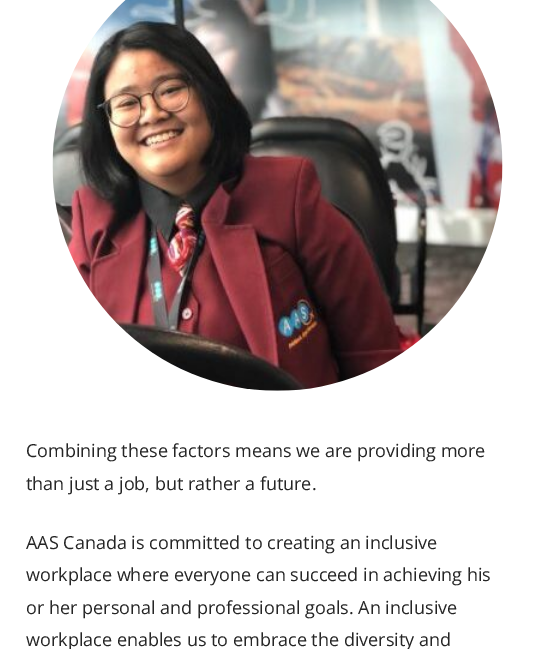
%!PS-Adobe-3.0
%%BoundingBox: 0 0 554 649
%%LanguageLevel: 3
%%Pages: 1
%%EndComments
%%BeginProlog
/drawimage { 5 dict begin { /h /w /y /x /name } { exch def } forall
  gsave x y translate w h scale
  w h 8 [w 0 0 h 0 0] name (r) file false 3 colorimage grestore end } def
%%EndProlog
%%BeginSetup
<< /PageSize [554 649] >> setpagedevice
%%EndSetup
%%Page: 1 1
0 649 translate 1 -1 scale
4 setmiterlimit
1 setgray
0 0 554 649 rectfill
(images/1.raw) 52 0 451 391 drawimage
/OpenSans-Regular [18 0 0 -18 0 0] selectfont
0.145 setgray
26 457 moveto (Combining these factors means we are providing more) show
26 490 moveto (than just a job, but rather a future.) show
26 549 moveto (AAS Canada is committed to creating an inclusive) show
26 581 moveto (workplace where everyone can succeed in achieving his) show
26 614 moveto (or her personal and professional goals. An inclusive) show
26 646 moveto (workplace enables us to embrace the diversity and) show
showpage
%%EOF
